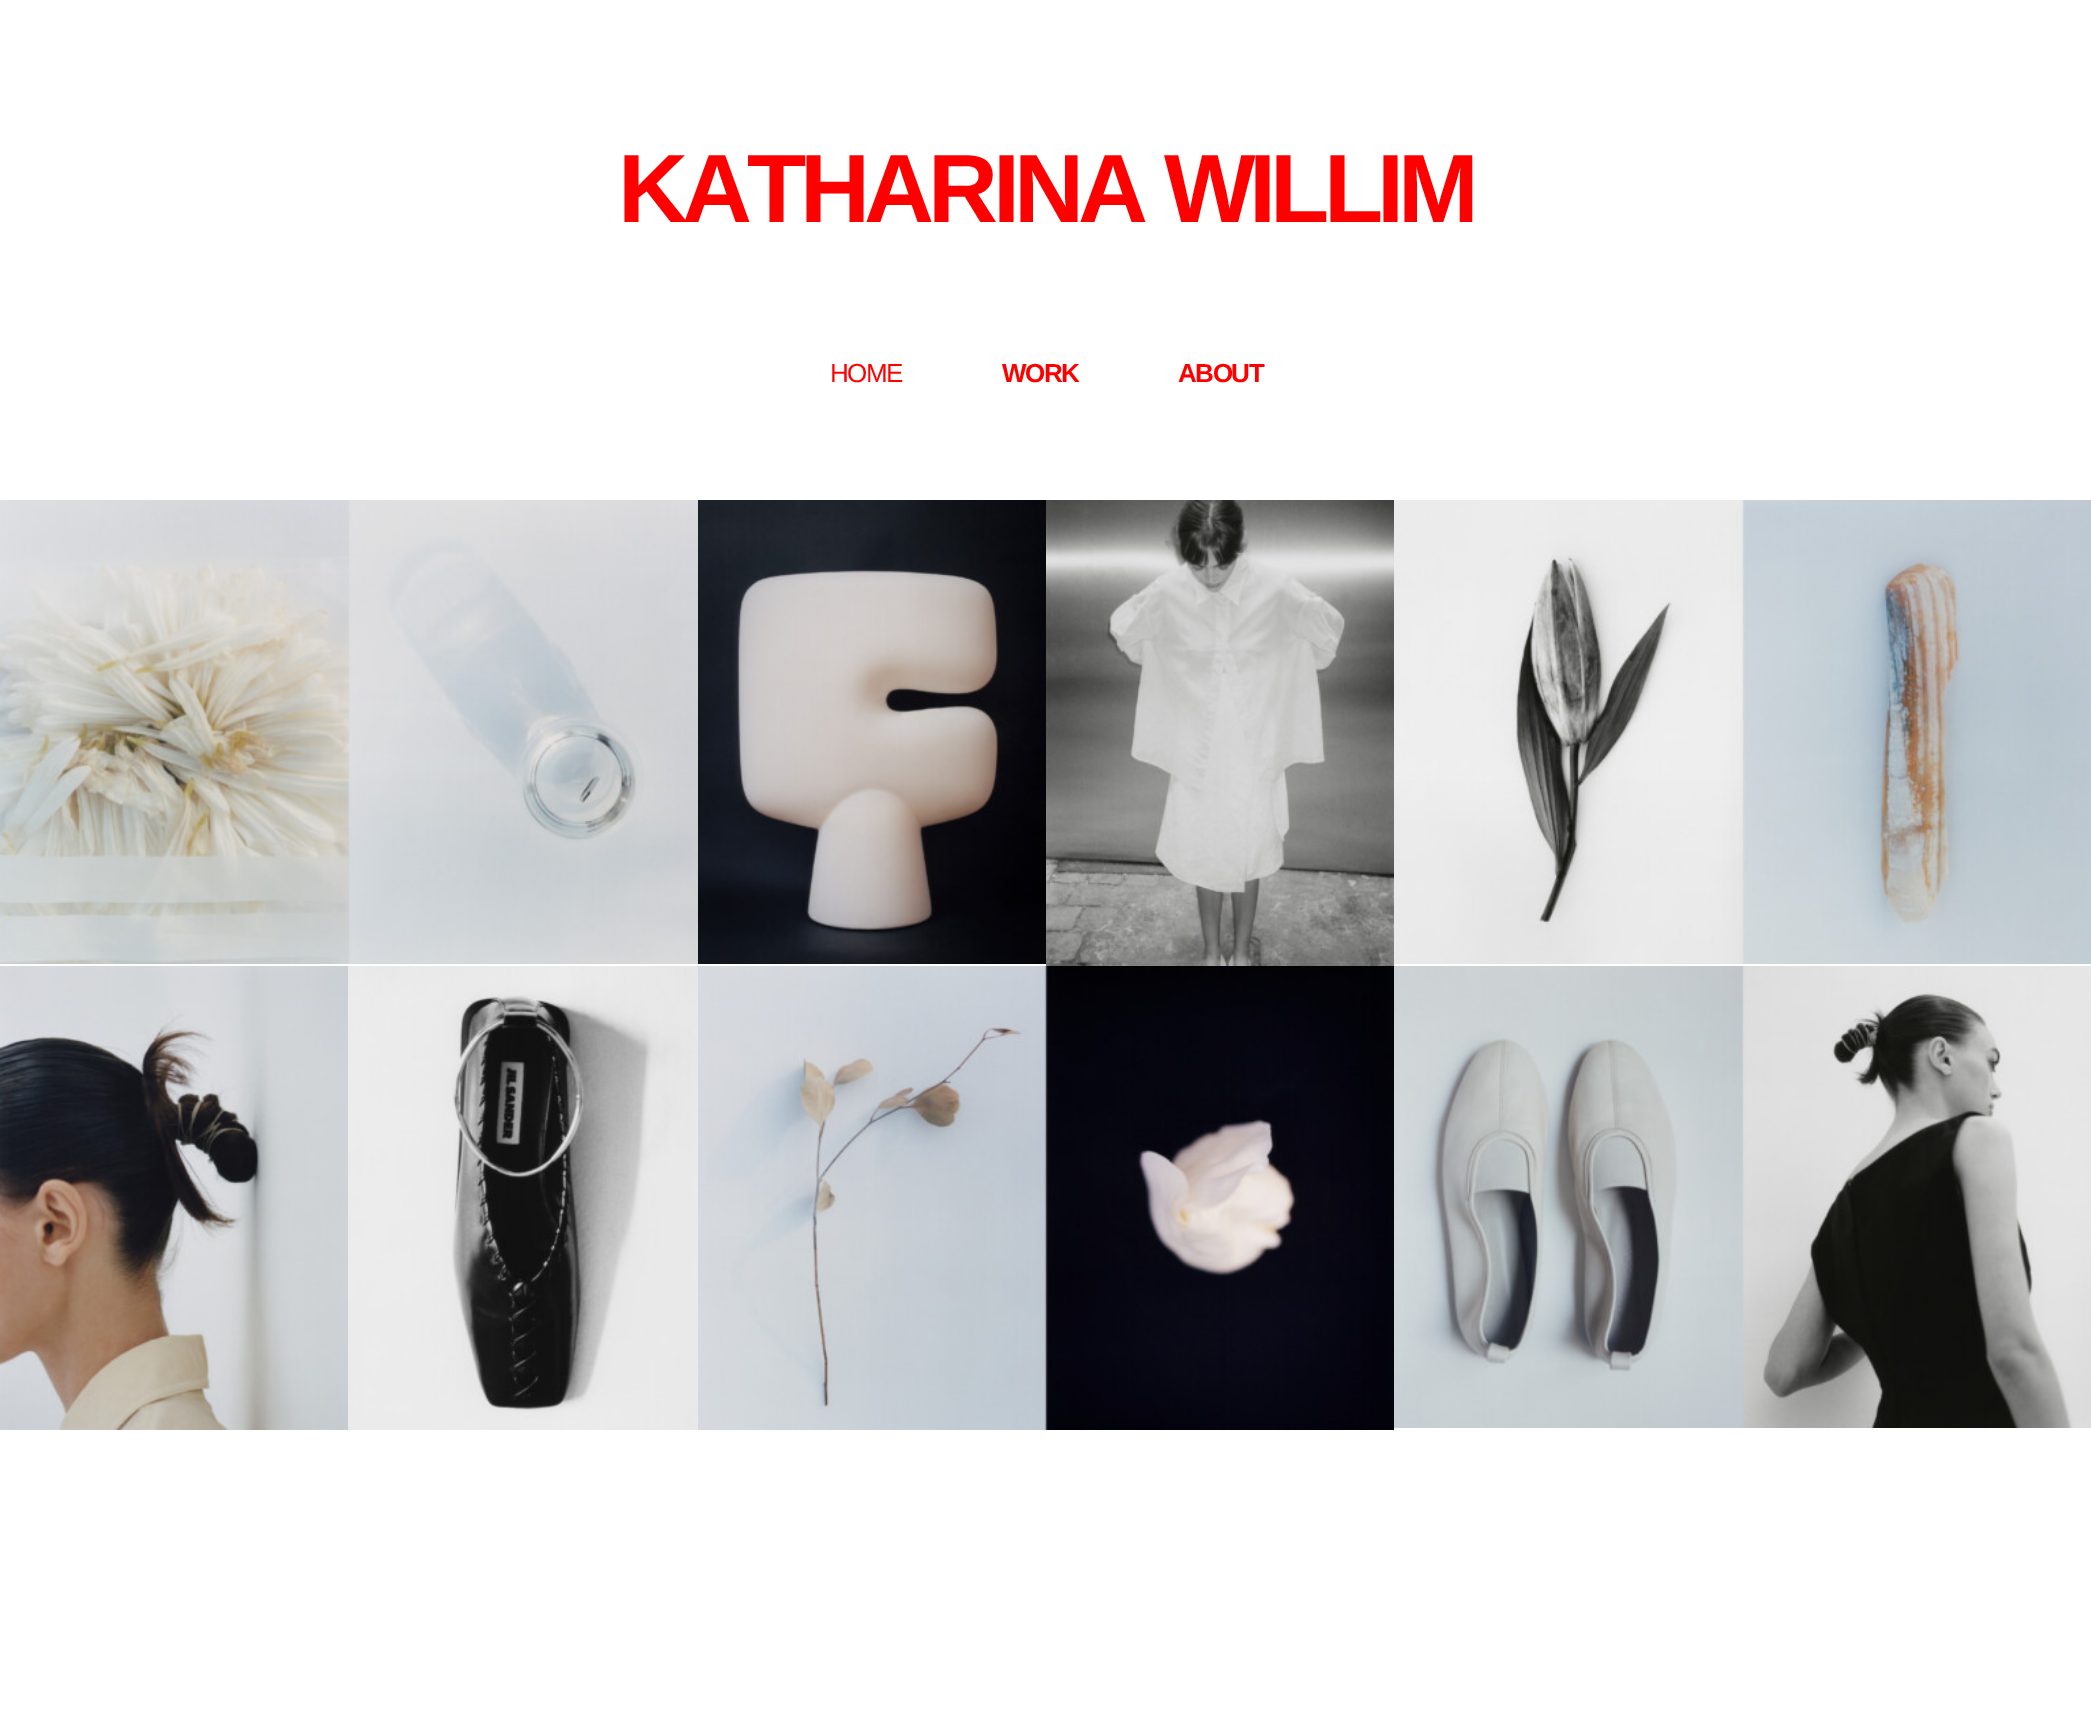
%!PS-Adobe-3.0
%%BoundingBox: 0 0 2091 1729
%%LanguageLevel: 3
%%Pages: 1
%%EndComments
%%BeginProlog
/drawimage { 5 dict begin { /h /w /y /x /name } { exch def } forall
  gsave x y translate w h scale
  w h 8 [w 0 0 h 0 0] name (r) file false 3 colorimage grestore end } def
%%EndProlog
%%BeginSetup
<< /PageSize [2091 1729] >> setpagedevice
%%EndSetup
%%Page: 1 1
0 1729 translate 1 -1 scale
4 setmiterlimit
1 setgray
0 0 2091 1729 rectfill
(images/1.raw) 0 500 698 464 drawimage
(images/2.raw) 698 500 348 464 drawimage
(images/3.raw) 1046 500 348 466 drawimage
(images/4.raw) 1394 500 697 464 drawimage
(images/5.raw) 0 966 348 464 drawimage
(images/6.raw) 348 966 350 464 drawimage
(images/7.raw) 698 966 696 464 drawimage
(images/8.raw) 1394 966 697 462 drawimage
/LiberationSans-Bold [97 0 0 -97 0 0] selectfont
1 0 0 setrgbcolor
618 222 moveto -5.8 0 (KATHARINA WILLIM) ashow
/LiberationSans-Regular [26 0 0 -26 0 0] selectfont
830 382 moveto -1.5 0 (HOME) ashow
/LiberationSans-Bold [26 0 0 -26 0 0] selectfont
1002 382 moveto -1.5 0 (WORK) ashow
1178 382 moveto -1.5 0 (ABOUT) ashow
showpage
%%EOF
